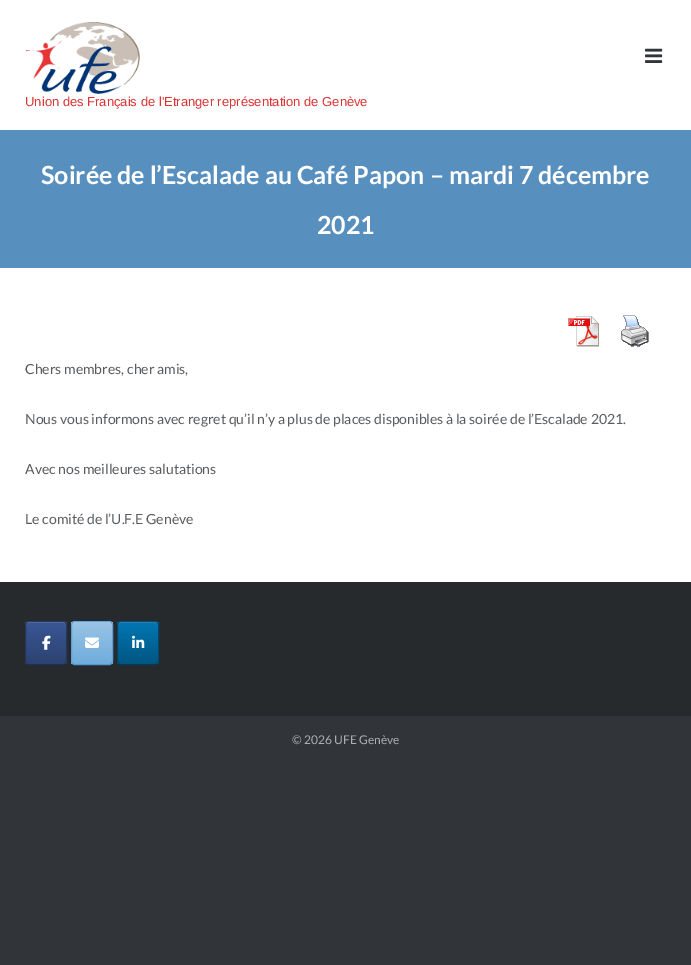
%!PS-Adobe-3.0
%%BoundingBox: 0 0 691 965
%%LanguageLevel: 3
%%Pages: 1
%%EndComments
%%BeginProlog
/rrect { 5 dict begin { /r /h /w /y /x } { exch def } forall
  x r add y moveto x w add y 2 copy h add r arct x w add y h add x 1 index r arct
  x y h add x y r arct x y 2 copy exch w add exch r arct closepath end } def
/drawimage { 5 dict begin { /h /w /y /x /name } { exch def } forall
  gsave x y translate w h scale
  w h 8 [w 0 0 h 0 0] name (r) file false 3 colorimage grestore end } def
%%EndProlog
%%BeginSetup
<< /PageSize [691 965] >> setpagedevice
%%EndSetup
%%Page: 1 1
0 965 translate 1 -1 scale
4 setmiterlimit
0.192 0.208 0.224 setrgbcolor
0 0 691 965 rectfill
1 setgray
0 0 691 582 rectfill
(images/1.raw) 645 48 18 15 drawimage
(images/2.raw) 25 22 115 72 drawimage
0.341 0.561 0.749 setrgbcolor
0 130 691 138 rectfill
(images/3.raw) 568 316 31 31 drawimage
(images/4.raw) 621 315 28 32 drawimage
0.153 0.165 0.176 setrgbcolor
0 582 691 134 rectfill
gsave
25 621 42 44 4 rrect clip newpath
gsave newpath 25 622 moveto 67 622 lineto 67 664 lineto 25 664 lineto closepath clip newpath
<< /ShadingType 2 /ColorSpace /DeviceRGB /Coords [26 664 26 622] /Extend [true true] /Function << /FunctionType 2 /Domain [0 1] /C0 [0.173 0.259 0.439] /C1 [0.227 0.341 0.584] /N 1 >> >> shfill grestore
grestore
0.38 0.475 0.667 setrgbcolor
newpath 28 623 moveto 64 623 lineto 65 623 66 624 66 626 curveto 66 621 63 622 58 622 curveto 34 622 lineto 29 622 26 621 26 626 curveto 26 624 27 623 28 623 curveto closepath fill
0.153 0.231 0.396 setrgbcolor
newpath 26.5 622.5 moveto 27 622 27.5 621.5 28.5 621.5 curveto 63.5 621.5 lineto 64.5 621.5 65 622 65.5 622.5 curveto stroke
0.145 0.216 0.369 setrgbcolor
newpath 65.5 622.5 moveto 66.5 624.5 lineto 66.5 661.5 lineto 65.5 663.5 lineto stroke
0.125 0.188 0.325 setrgbcolor
newpath 65.5 663.5 moveto 65 664 64.5 664.5 63.5 664.5 curveto 28.5 664.5 lineto 27.5 664.5 27 664 26.5 663.5 curveto stroke
0.145 0.216 0.369 setrgbcolor
newpath 26.5 663.5 moveto 25.5 661.5 lineto 25.5 624.5 lineto 26.5 622.5 lineto stroke
(images/5.raw) 42 635 9 15 drawimage
gsave
71 621 42 44 4 rrect clip newpath
gsave newpath 71 622 moveto 113 622 lineto 113 664 lineto 71 664 lineto closepath clip newpath
<< /ShadingType 2 /ColorSpace /DeviceRGB /Coords [72 664 72 622] /Extend [true true] /Function << /FunctionType 2 /Domain [0 1] /C0 [0.439 0.675 0.863] /C1 [0.6 0.769 0.902] /N 1 >> >> shfill grestore
grestore
0.678 0.816 0.922 setrgbcolor
newpath 74 623 moveto 110 623 lineto 111 623 112 624 112 626 curveto 112 621 109 622 104 622 curveto 80 622 lineto 75 622 72 621 72 626 curveto 72 624 73 623 74 623 curveto closepath fill
0.392 0.647 0.851 setrgbcolor
newpath 72.5 622.5 moveto 73 622 73.5 621.5 74.5 621.5 curveto 109.5 621.5 lineto 110.5 621.5 111 622 111.5 622.5 curveto stroke
0.361 0.627 0.843 setrgbcolor
newpath 111.5 622.5 moveto 112.5 624.5 lineto 112.5 661.5 lineto 111.5 663.5 lineto stroke
0.31 0.6 0.831 setrgbcolor
newpath 111.5 663.5 moveto 111 664 110.5 664.5 109.5 664.5 curveto 74.5 664.5 lineto 73.5 664.5 73 664 72.5 663.5 curveto stroke
0.361 0.627 0.843 setrgbcolor
newpath 72.5 663.5 moveto 71.5 661.5 lineto 71.5 624.5 lineto 72.5 622.5 lineto stroke
(images/6.raw) 85 637 14 11 drawimage
gsave
117 621 42 44 4 rrect clip newpath
gsave newpath 117 622 moveto 159 622 lineto 159 664 lineto 117 664 lineto closepath clip newpath
<< /ShadingType 2 /ColorSpace /DeviceRGB /Coords [118 664 118 622] /Extend [true true] /Function << /FunctionType 2 /Domain [0 1] /C0 [0.004 0.333 0.506] /C1 [0.004 0.467 0.706] /N 1 >> >> shfill grestore
grestore
0.204 0.573 0.761 setrgbcolor
newpath 120 623 moveto 156 623 lineto 157 623 158 624 158 626 curveto 158 621 155 622 150 622 curveto 126 622 lineto 121 622 118 621 118 626 curveto 118 624 119 623 120 623 curveto closepath fill
0.004 0.294 0.447 setrgbcolor
newpath 118.5 622.5 moveto 119 622 119.5 621.5 120.5 621.5 curveto 155.5 621.5 lineto 156.5 621.5 157 622 157.5 622.5 curveto stroke
0.004 0.271 0.408 setrgbcolor
newpath 157.5 622.5 moveto 158.5 624.5 lineto 158.5 661.5 lineto 157.5 663.5 lineto stroke
0 0.231 0.349 setrgbcolor
newpath 157.5 663.5 moveto 157 664 156.5 664.5 155.5 664.5 curveto 120.5 664.5 lineto 119.5 664.5 119 664 118.5 663.5 curveto stroke
0.004 0.271 0.408 setrgbcolor
newpath 118.5 663.5 moveto 117.5 661.5 lineto 117.5 624.5 lineto 118.5 622.5 lineto stroke
(images/7.raw) 132 635 13 13 drawimage
/LiberationSans-Regular [13 0 0 -13 0 0] selectfont
0.867 0.2 0.2 setrgbcolor
25 106 moveto (Union des Français de l'Etranger représentation de Genève) show
/Lato-Bold [25 0 0 -25 0 0] selectfont
1 setgray
41 184 moveto (Soirée de l’Escalade au Café Papon – mardi 7 décembre) show
317 234 moveto (2021) show
/Lato-Regular [14 0 0 -14 0 0] selectfont
0.353 0.365 0.376 setrgbcolor
25 374 moveto (Chers membres, cher amis,) show
25 424 moveto (Nous vous informons avec regret qu’il n’y a plus de places disponibles à la soirée de l’Escalade 2021.) show
25 474 moveto (Avec nos meilleures salutations) show
25 524 moveto (Le comité de l’U.F.E Genève) show
/Lato-Regular [12 0 0 -12 0 0] selectfont
0.675 0.682 0.686 setrgbcolor
292 744 moveto (© 2026 UFE Genève) show
showpage
%%EOF
